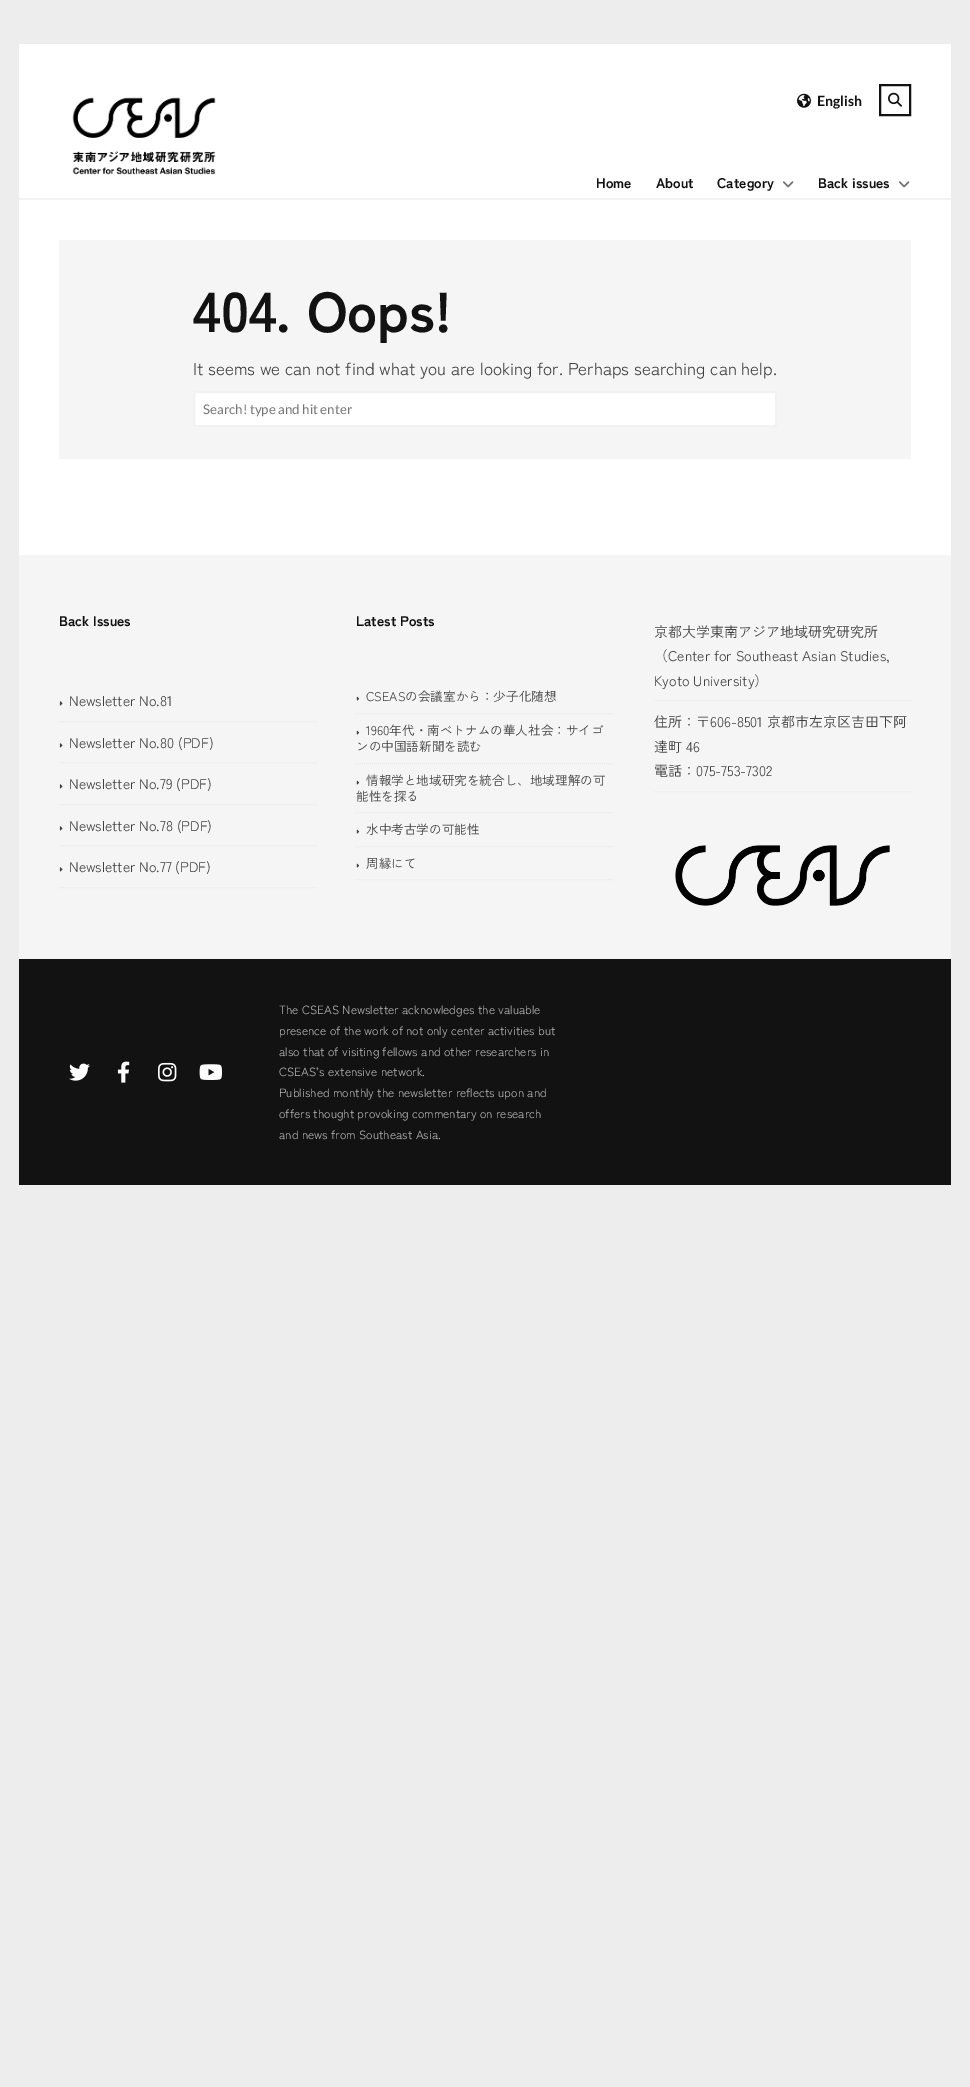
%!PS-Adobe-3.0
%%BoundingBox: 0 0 970 2087
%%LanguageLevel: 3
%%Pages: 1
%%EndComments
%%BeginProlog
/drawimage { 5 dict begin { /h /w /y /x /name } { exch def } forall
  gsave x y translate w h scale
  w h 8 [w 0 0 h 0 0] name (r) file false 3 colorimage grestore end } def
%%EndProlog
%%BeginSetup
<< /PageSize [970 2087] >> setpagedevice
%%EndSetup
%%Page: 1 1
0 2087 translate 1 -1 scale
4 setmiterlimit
0.929 setgray
0 0 970 2087 rectfill
1 setgray
19 44 932 511 rectfill
0.949 setgray
19 198 932 2 rectfill
(images/1.raw) 72 97 144 78 drawimage
(images/2.raw) 797 93 14 15 drawimage
0.071 setgray
2 setlinewidth
880 85 30 30 rectstroke
(images/3.raw) 888 92 14 15 drawimage
(images/4.raw) 783 181 11 7 drawimage
(images/4.raw) 899 181 11 7 drawimage
0.961 setgray
59 240 852 219 rectfill
1 setgray
newpath 194 392 moveto 776 392 lineto 776 426 lineto 194 426 lineto closepath gsave fill grestore
0.949 setgray
stroke
0.961 setgray
19 555 932 404 rectfill
0.914 setgray
1 setlinewidth
[1 1] 0 setdash
newpath 59 721.5 moveto 316 721.5 lineto stroke
(images/5.raw) 59 701 4 5 drawimage
newpath 59 762.5 moveto 316 762.5 lineto stroke
(images/5.raw) 59 743 4 5 drawimage
newpath 59 804.5 moveto 316 804.5 lineto stroke
(images/5.raw) 59 784 4 5 drawimage
newpath 59 845.5 moveto 316 845.5 lineto stroke
(images/5.raw) 59 826 4 5 drawimage
newpath 59 887.5 moveto 316 887.5 lineto stroke
(images/5.raw) 59 867 4 5 drawimage
newpath 356 713.5 moveto 614 713.5 lineto stroke
(images/6.raw) 356 696 4 5 drawimage
newpath 356 763.5 moveto 614 763.5 lineto stroke
(images/6.raw) 356 730 4 5 drawimage
newpath 356 812.5 moveto 614 812.5 lineto stroke
(images/6.raw) 356 780 4 5 drawimage
newpath 356 846.5 moveto 614 846.5 lineto stroke
(images/6.raw) 356 829 4 5 drawimage
newpath 356 879.5 moveto 614 879.5 lineto stroke
(images/6.raw) 356 863 4 5 drawimage
newpath 654 700.5 moveto 911 700.5 lineto stroke
newpath 654 791.5 moveto 911 791.5 lineto stroke
(images/7.raw) 675 845 215 61 drawimage
0.071 setgray
19 959 932 226 rectfill
(images/8.raw) 69 1063 21 18 drawimage
(images/9.raw) 117 1061 13 22 drawimage
(images/10.raw) 158 1062 19 20 drawimage
(images/11.raw) 199 1064 23 16 drawimage
/Lato-Bold [14 0 0 -14 0 0] selectfont
817 106 moveto (English) show
/ZenKakuGothicNew-Bold [14 0 0 -14 0 0] selectfont
596 188 moveto (Home) show
656 188 moveto (About) show
717 188 moveto (Category) show
818 188 moveto (Back issues) show
/ZenKakuGothicNew-Bold [56 0 0 -56 0 0] selectfont
193 332 moveto (404. Oops!) show
/ZenKakuGothicNew-Regular [17 0 0 -17 0 0] selectfont
0.247 setgray
193 375 moveto (It seems we can not find what you are looking for. Perhaps searching can help.) show
/Lato-Regular [13.25 0 0 -13.25 0 0] selectfont
0.459 setgray
203 414 moveto (Search! type and hit enter) show
/ZenKakuGothicNew-Bold [14 0 0 -14 0 0] selectfont
0.071 setgray
59 626 moveto (Back Issues) show
/ZenKakuGothicNew-Regular [14 0 0 -14 0 0] selectfont
0.247 setgray
69 706 moveto (Newsletter No.81) show
69 748 moveto (Newsletter No.80 \(PDF\)) show
69 789 moveto (Newsletter No.79 \(PDF\)) show
69 831 moveto (Newsletter No.78 \(PDF\)) show
69 872 moveto (Newsletter No.77 \(PDF\)) show
/ZenKakuGothicNew-Bold [14 0 0 -14 0 0] selectfont
0.071 setgray
356 626 moveto (Latest Posts) show
/ZenKakuGothicNew-Regular [12.6 0 0 -12.6 0 0] selectfont
0.247 setgray
366 701 moveto (CSEASの会議室から：少子化随想) show
366 735 moveto (1960年代・南ベトナムの華人社会：サイゴ) show
356 751 moveto (ンの中国語新聞を読む) show
366 785 moveto (情報学と地域研究を統合し、地域理解の可) show
356 801 moveto (能性を探る) show
366 834 moveto (水中考古学の可能性) show
366 868 moveto (周縁にて) show
/ZenKakuGothicNew-Regular [14 0 0 -14 0 0] selectfont
654 637 moveto (京都大学東南アジア地域研究研究所) show
654 661 moveto (（Center for Southeast Asian Studies,) show
654 686 moveto (Kyoto University）) show
654 727 moveto (住所：〒606-8501 京都市左京区吉田下阿) show
654 752 moveto (達町 46) show
654 776 moveto (電話：075-753-7302) show
/ZenKakuGothicNew-Regular [11.9 0 0 -11.9 0 0] selectfont
0.722 setgray
279 1014 moveto (The CSEAS Newsletter acknowledges the valuable) show
279 1035 moveto (presence of the work of not only center activities but) show
279 1056 moveto (also that of visiting fellows and other researchers in) show
279 1076 moveto (CSEAS’s extensive network.) show
279 1097 moveto (Published monthly the newsletter reflects upon and) show
279 1118 moveto (offers thought provoking commentary on research) show
279 1139 moveto (and news from Southeast Asia.) show
showpage
%%EOF
